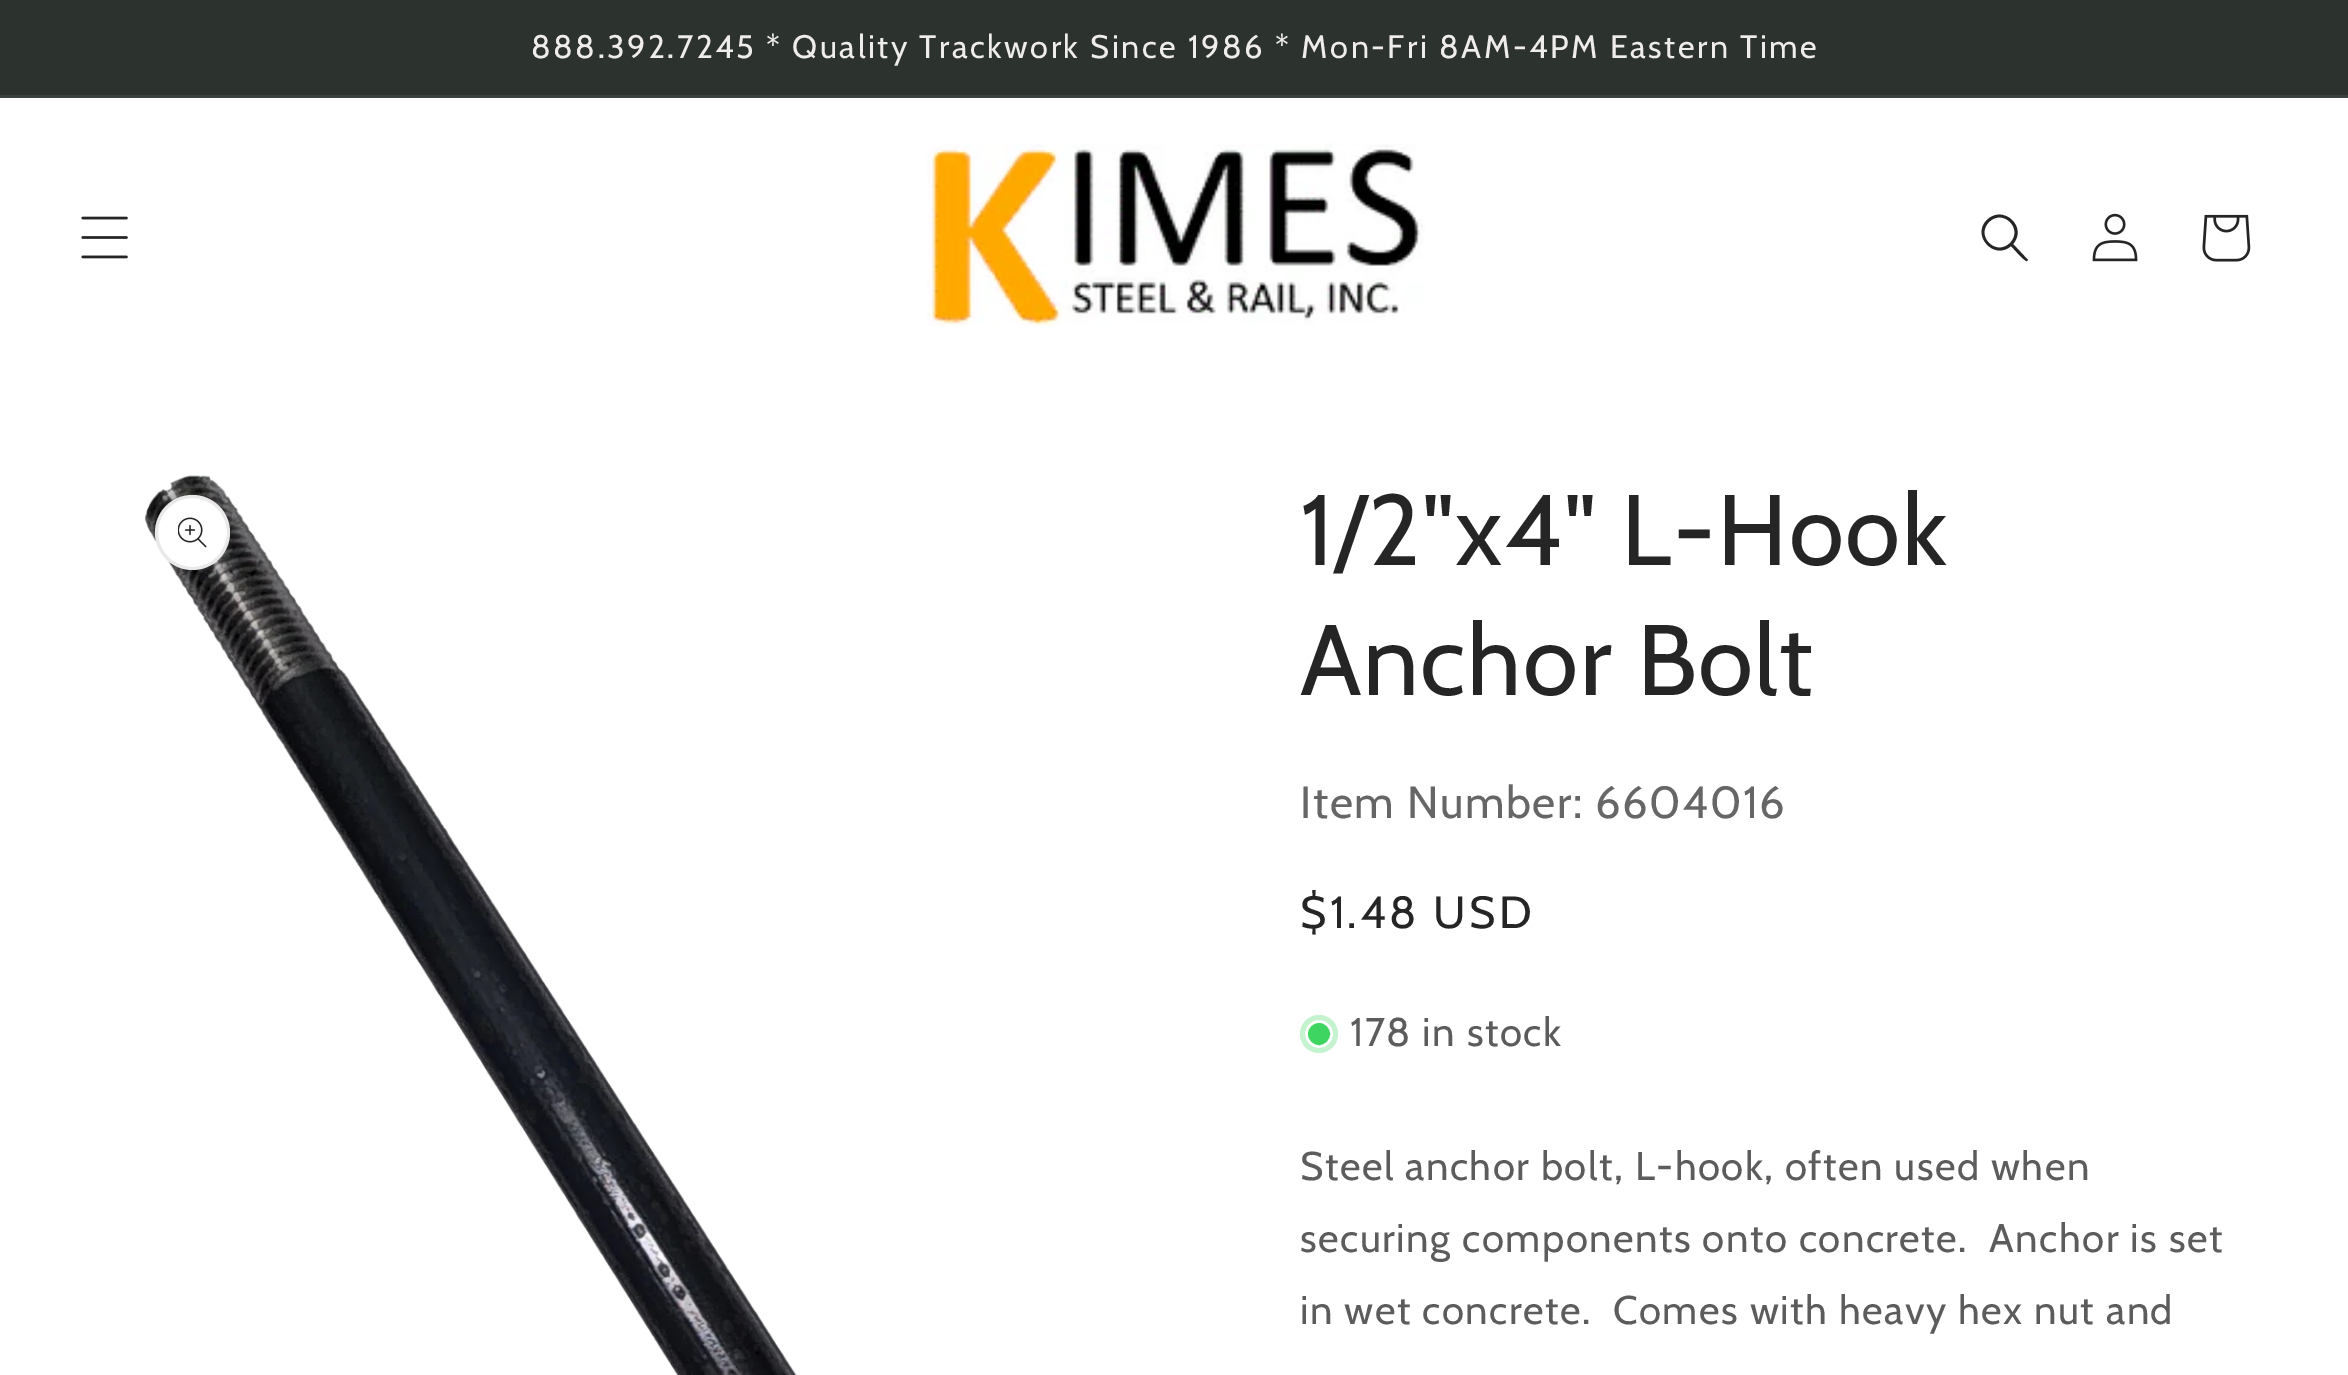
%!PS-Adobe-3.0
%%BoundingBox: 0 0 2348 1375
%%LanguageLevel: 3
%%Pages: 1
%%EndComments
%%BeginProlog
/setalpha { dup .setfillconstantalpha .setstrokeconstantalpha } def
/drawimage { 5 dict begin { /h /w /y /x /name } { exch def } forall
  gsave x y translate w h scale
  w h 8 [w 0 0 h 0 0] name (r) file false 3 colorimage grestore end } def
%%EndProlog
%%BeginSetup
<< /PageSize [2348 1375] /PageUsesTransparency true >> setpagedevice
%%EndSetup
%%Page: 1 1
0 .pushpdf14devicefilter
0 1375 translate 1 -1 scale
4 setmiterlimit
1 setgray
0 0 2348 1375 rectfill
0.173 0.2 0.184 setrgbcolor
0 0 2348 95 rectfill
0.235 0.259 0.243 setrgbcolor
0 95 2348 3 rectfill
(images/1.raw) 81 216 47 43 drawimage
(images/2.raw) 927 143 498 183 drawimage
0.145 setgray
newpath 2010 243 moveto 1996 257 1975 236 1989 222 curveto 2003 208 2024 229 2010 243 curveto closepath 2011 246 moveto 1994 261 1971 235 1987 220 curveto 2003 204 2028 227 2013 244 curveto 2028 260 lineto 2027 261 lineto 2025 262 2013 248 2011 246 curveto closepath eofill
(images/3.raw) 2092 213 46 49 drawimage
(images/4.raw) 2202 214 49 48 drawimage
(images/5.raw) 144 475 653 900 drawimage
1 setgray
newpath 192.5 532.5 37.5 0 360 arc closepath fill
0.1 setalpha
0.145 setgray
3 setlinewidth
newpath 192.5 532.5 36 0 360 arc closepath stroke
1 setalpha
(images/6.raw) 178 517 29 31 drawimage
0.773 0.953 0.812 setrgbcolor
newpath 1319 1034 19 0 360 arc closepath fill
0.243 0.839 0.376 setrgbcolor
newpath 1319 1034 12.5 0 360 arc closepath gsave fill grestore
1 setgray
2.5 setlinewidth
stroke
/Cabin-Regular [32.5 0 0 -32.5 0 0] selectfont
0.937 0.925 0.925 setrgbcolor
531 58 moveto 2.5 0 (888.392.7245 * Quality Trackwork Since 1986 * Mon-Fri 8AM-4PM Eastern Time) ashow
/Cabin-Regular [100 0 0 -100 0 0] selectfont
0.145 setgray
1300 565 moveto 1.5 0 (1/2"x4" L-Hook) ashow
1300 695 moveto 1.5 0 (Anchor Bolt) ashow
/Cabin-Regular [45 0 0 -45 0 0] selectfont
0.4 setgray
1300 818 moveto 1.5 0 (Item Number: 6604016) ashow
0.145 setgray
1300 928 moveto 3.25 0 ($1.48 USD) ashow
/Cabin-Regular [40 0 0 -40 0 0] selectfont
0.361 setgray
1350 1046 moveto 1.5 0 (178 in stock) ashow
1300 1180 moveto 1.5 0 (Steel anchor bolt, L-hook, often used when) ashow
1300 1252 moveto 1.5 0 (securing components onto concrete.  Anchor is set) ashow
1300 1324 moveto 1.5 0 (in wet concrete.  Comes with heavy hex nut and) ashow
.poppdf14devicefilter showpage
%%EOF
